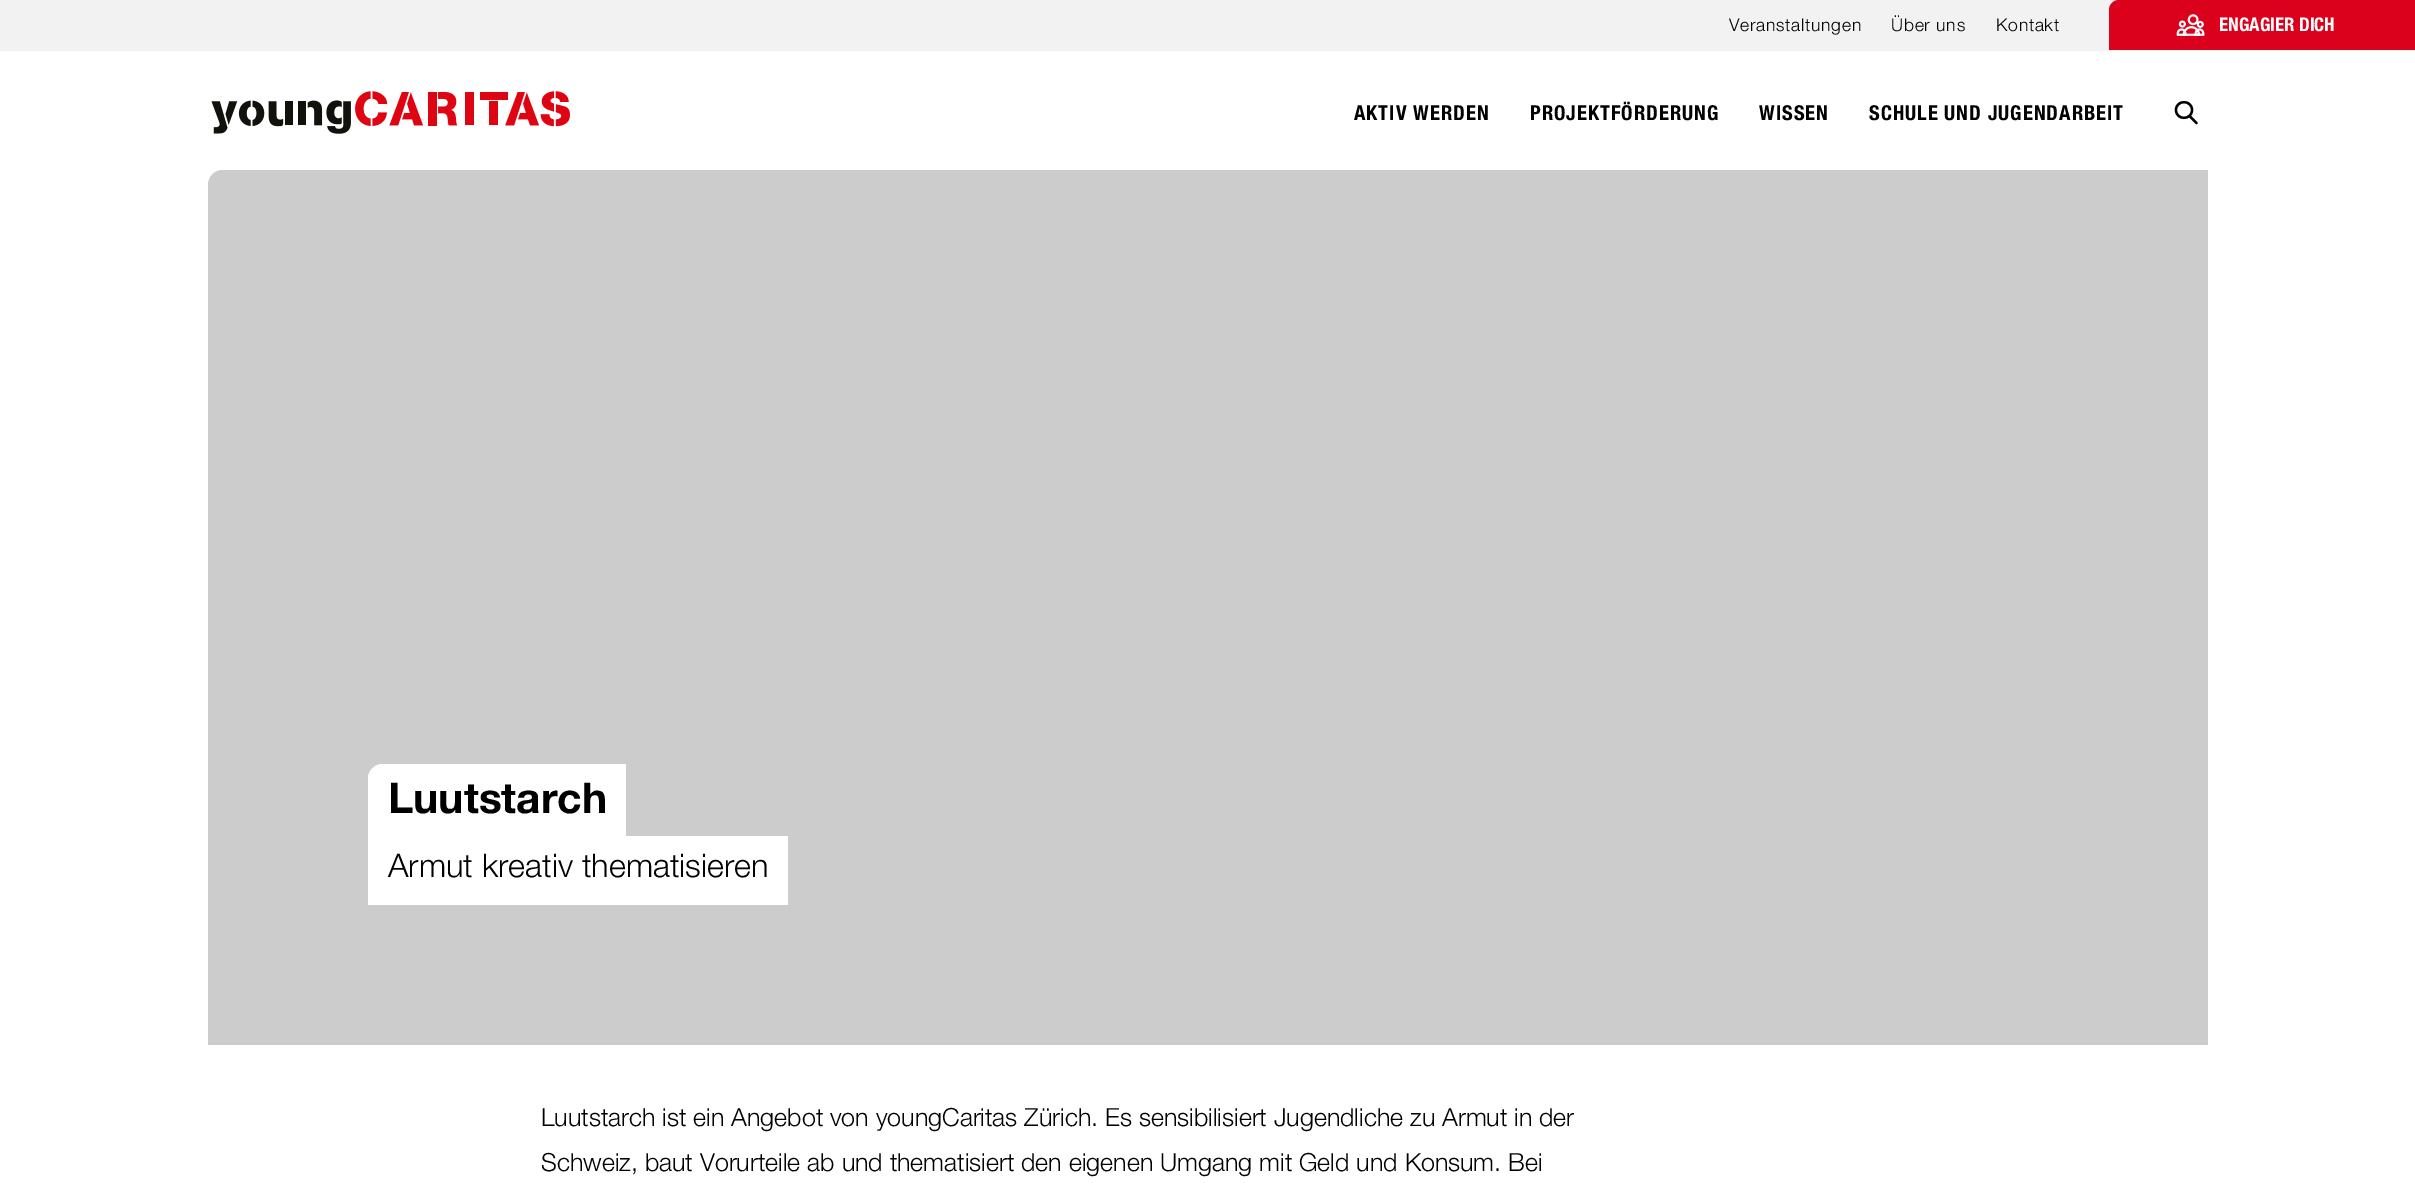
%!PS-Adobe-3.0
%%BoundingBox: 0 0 2415 1197
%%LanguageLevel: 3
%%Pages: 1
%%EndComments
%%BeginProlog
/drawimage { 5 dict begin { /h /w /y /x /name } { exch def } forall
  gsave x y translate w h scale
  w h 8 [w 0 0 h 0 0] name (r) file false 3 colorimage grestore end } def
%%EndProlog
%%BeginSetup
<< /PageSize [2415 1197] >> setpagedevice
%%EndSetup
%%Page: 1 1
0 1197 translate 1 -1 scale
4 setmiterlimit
1 setgray
0 0 2415 1197 rectfill
0.949 setgray
0 0 2119 48 rectfill
0 48 2415 3 rectfill
0.859 0 0.106 setrgbcolor
newpath 2119 0 moveto 2415 0 lineto 2415 50 lineto 2109 50 lineto 2109 10 lineto 2109 4.5 2113.5 0 2119 0 curveto closepath fill
(images/1.raw) 2176 14 29 22 drawimage
(images/2.raw) 211 91 359 43 drawimage
0 setgray
2.3 setlinewidth
1 setlinecap
1 setlinejoin
newpath 2196.5 123 moveto 2189.5 116 lineto 2192 110 moveto 2192 120.5 2176 120.5 2176 110 curveto 2176 99.5 2192 99.5 2192 110 curveto closepath stroke
0.8 setgray
newpath 223 170 moveto 2208 170 lineto 2208 1045 lineto 208 1045 lineto 208 185 lineto 208 176.5 214.5 170 223 170 curveto closepath fill
1 setgray
newpath 383 764 moveto 408 764 lineto 408 806 lineto 368 806 lineto 368 779 lineto 368 770.5 374.5 764 383 764 curveto closepath fill
newpath 368 836 moveto 368 905 lineto 388 905 lineto 388 836 lineto 748 836 lineto closepath fill
388 836 380 69 rectfill
newpath 383 764 moveto 375 764 368 771 368 779 curveto 368 839 lineto 586 839 lineto 388 839 lineto 388 779 lineto 388 771 393 765 400 764 curveto closepath fill
newpath 408 839 moveto 626 839 lineto 626 764 lineto 606 764 lineto 606 839 lineto closepath fill
newpath 403 764 moveto 606 764 lineto 606 839 lineto 388 839 lineto 388 779 lineto 388 770.5 394.5 764 403 764 curveto closepath fill
newpath 408 836 moveto 768 836 lineto 768 905 lineto 788 905 lineto 788 836 lineto closepath fill
/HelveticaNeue-Light [17.5 0 0 -17.5 0 0] selectfont
0 setgray
1729 31 moveto 0.75 0 (Veranstaltungen) ashow
1891 31 moveto 0.75 0 (Über uns) ashow
1996 31 moveto 0.75 0 (Kontakt) ashow
/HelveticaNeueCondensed-Bold [18.75 0 0 -18.75 0 0] selectfont
1 setgray
2219 31 moveto (ENGAGIER DICH) show
/HelveticaNeueCondensed-Bold [20.5 0 0 -20.5 0 0] selectfont
0 setgray
1354 120 moveto 1 0 (AKTIV WERDEN) ashow
1530 120 moveto 1 0 (PROJEKTFÖRDERUNG) ashow
1759 120 moveto 1 0 (WISSEN) ashow
1869 120 moveto 1 0 (SCHULE UND JUGENDARBEIT) ashow
/HelveticaNeue-Bold [42.5 0 0 -42.5 0 0] selectfont
388 813 moveto (Luutstarch) show
/HelveticaNeue-Light [32.5 0 0 -32.5 0 0] selectfont
388 877 moveto (Armut kreativ thematisieren) show
/HelveticaNeue-Light [25 0 0 -25 0 0] selectfont
541 1126 moveto (Luutstarch ist ein Angebot von youngCaritas Zürich. Es sensibilisiert Jugendliche zu Armut in der) show
541 1171 moveto (Schweiz, baut Vorurteile ab und thematisiert den eigenen Umgang mit Geld und Konsum. Bei) show
showpage
%%EOF
